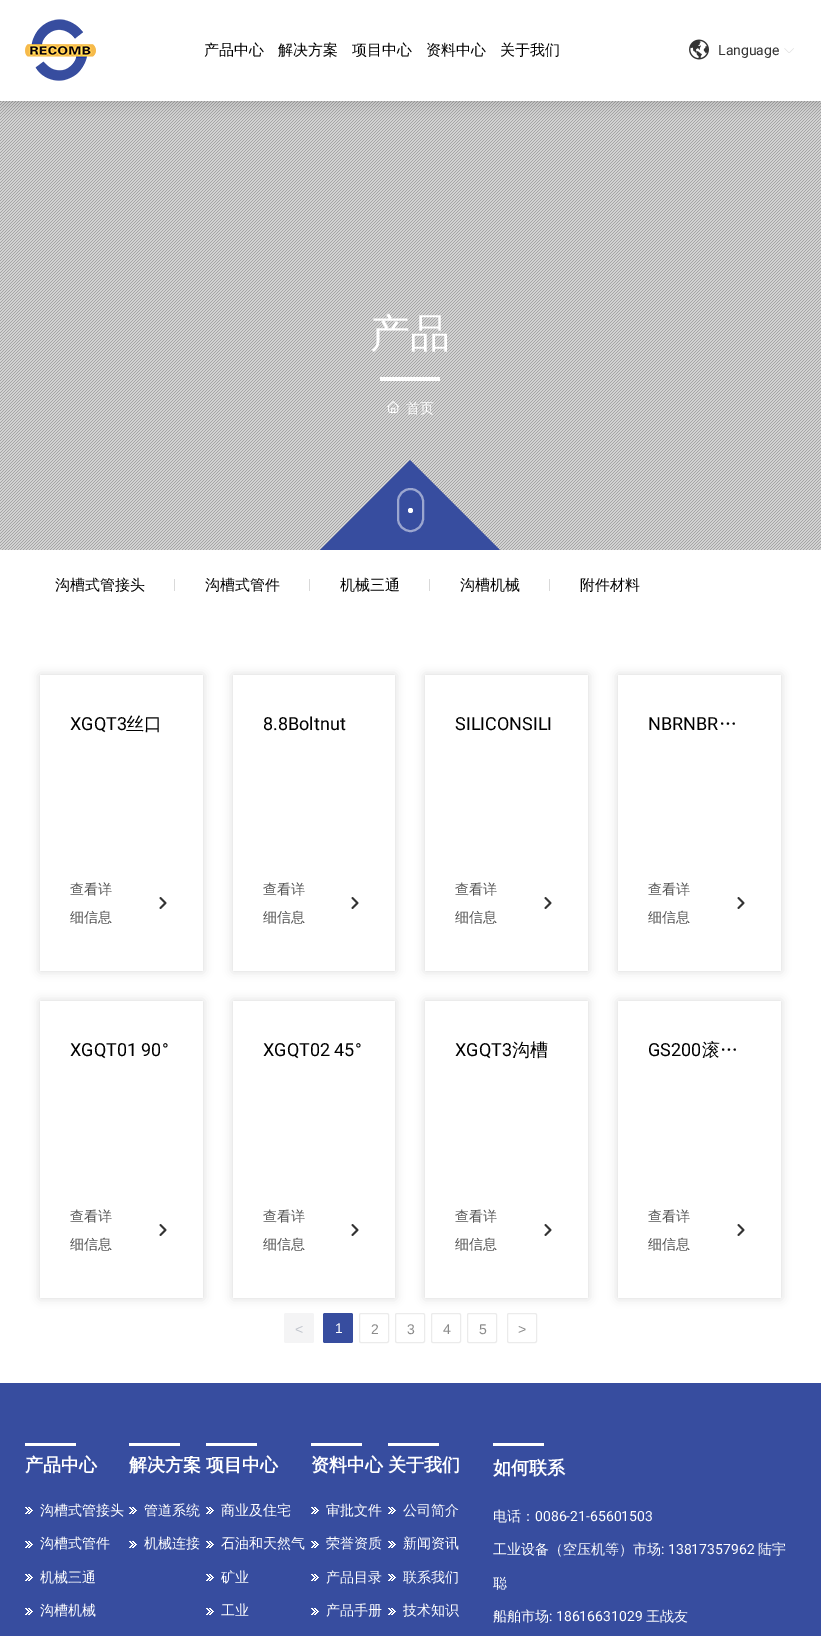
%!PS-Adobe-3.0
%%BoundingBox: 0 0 821 1636
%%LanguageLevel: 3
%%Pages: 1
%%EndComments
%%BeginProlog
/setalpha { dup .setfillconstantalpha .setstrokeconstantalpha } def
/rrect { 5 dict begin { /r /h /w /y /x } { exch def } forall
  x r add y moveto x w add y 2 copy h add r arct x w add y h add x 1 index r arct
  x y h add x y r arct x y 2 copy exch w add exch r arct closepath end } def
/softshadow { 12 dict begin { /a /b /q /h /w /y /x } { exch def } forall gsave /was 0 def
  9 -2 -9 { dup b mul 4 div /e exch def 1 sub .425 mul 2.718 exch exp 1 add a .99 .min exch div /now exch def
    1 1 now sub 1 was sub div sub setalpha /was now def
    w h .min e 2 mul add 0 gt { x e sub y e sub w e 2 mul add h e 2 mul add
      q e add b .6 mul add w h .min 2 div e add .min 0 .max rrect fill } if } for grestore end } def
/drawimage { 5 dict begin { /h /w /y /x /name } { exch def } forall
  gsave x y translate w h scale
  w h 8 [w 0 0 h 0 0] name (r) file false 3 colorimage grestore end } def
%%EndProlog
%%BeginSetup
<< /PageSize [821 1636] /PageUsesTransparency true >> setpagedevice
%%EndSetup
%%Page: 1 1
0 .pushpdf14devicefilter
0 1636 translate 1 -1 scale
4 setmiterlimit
1 setgray
0 0 821 1636 rectfill
(images/4.raw) 0 101 821 449 drawimage
0 setgray
0 0 821 101 0 7.5 0.2 softshadow
1 setgray
0 0 821 101 rectfill
(images/1.raw) 25 19 71 62 drawimage
(images/2.raw) 689 39 20 21 drawimage
(images/3.raw) 784 48 10 5 drawimage
380 377 60 4 rectfill
(images/5.raw) 387 401 12 12 drawimage
0.216 0.302 0.624 setrgbcolor
newpath 500 550 moveto 320 550 lineto 410 460 lineto closepath fill
0.608 0.651 0.812 setrgbcolor
2 setlinewidth
398 489 25 42 12.5 rrect stroke
1 setgray
newpath 410.5 510.5 2.5 0 360 arc closepath fill
0.851 setgray
174 579 1 12 rectfill
309 579 1 12 rectfill
429 579 1 12 rectfill
549 579 1 12 rectfill
gsave
newpath 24 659 moveto 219 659 lineto 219 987 lineto 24 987 lineto closepath 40 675 moveto 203 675 lineto 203 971 lineto 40 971 lineto closepath eoclip newpath
0 setgray
40 675 163 296 0 5 0.15 softshadow
grestore
(images/6.raw) 159 897 8 12 drawimage
gsave
newpath 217 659 moveto 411 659 lineto 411 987 lineto 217 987 lineto closepath 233 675 moveto 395 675 lineto 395 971 lineto 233 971 lineto closepath eoclip newpath
0 setgray
233 675 162 296 0 5 0.15 softshadow
grestore
(images/6.raw) 351 897 8 12 drawimage
gsave
newpath 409 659 moveto 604 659 lineto 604 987 lineto 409 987 lineto closepath 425 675 moveto 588 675 lineto 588 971 lineto 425 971 lineto closepath eoclip newpath
0 setgray
425 675 163 296 0 5 0.15 softshadow
grestore
(images/6.raw) 544 897 8 12 drawimage
gsave
newpath 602 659 moveto 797 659 lineto 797 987 lineto 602 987 lineto closepath 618 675 moveto 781 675 lineto 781 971 lineto 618 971 lineto closepath eoclip newpath
0 setgray
618 675 163 296 0 5 0.15 softshadow
grestore
(images/6.raw) 737 897 8 12 drawimage
gsave
newpath 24 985 moveto 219 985 lineto 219 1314 lineto 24 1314 lineto closepath 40 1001 moveto 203 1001 lineto 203 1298 lineto 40 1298 lineto closepath eoclip newpath
0 setgray
40 1001 163 297 0 5 0.15 softshadow
grestore
(images/6.raw) 159 1224 8 12 drawimage
0.957 0.957 0.961 setrgbcolor
284 1313 30 30 2 rrect fill
0.216 0.302 0.624 setrgbcolor
323 1313 30 30 2 rrect fill
0.922 setgray
1 setlinewidth
359.5 1313.5 29 29 1.5 rrect stroke
395.5 1313.5 29 29 1.5 rrect stroke
gsave
newpath 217 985 moveto 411 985 lineto 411 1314 lineto 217 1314 lineto closepath 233 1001 moveto 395 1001 lineto 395 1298 lineto 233 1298 lineto closepath eoclip newpath
0 setgray
233 1001 162 297 0 5 0.15 softshadow
grestore
(images/6.raw) 351 1224 8 12 drawimage
431.5 1313.5 29 29 1.5 rrect stroke
467.5 1313.5 29 29 1.5 rrect stroke
507.5 1313.5 29 29 1.5 rrect stroke
gsave
newpath 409 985 moveto 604 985 lineto 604 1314 lineto 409 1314 lineto closepath 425 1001 moveto 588 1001 lineto 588 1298 lineto 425 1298 lineto closepath eoclip newpath
0 setgray
425 1001 163 297 0 5 0.15 softshadow
grestore
(images/6.raw) 544 1224 8 12 drawimage
gsave
newpath 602 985 moveto 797 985 lineto 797 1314 lineto 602 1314 lineto closepath 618 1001 moveto 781 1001 lineto 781 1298 lineto 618 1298 lineto closepath eoclip newpath
0 setgray
618 1001 163 297 0 5 0.15 softshadow
grestore
(images/6.raw) 737 1224 8 12 drawimage
0.216 0.302 0.624 setrgbcolor
0 1383 821 253 rectfill
1 setgray
25 1443 51 3 rectfill
(images/7.raw) 25 1507 8 7 drawimage
(images/7.raw) 25 1541 8 7 drawimage
(images/7.raw) 25 1574 8 7 drawimage
(images/7.raw) 25 1608 8 7 drawimage
129 1443 51 3 rectfill
(images/7.raw) 129 1507 8 7 drawimage
(images/7.raw) 129 1541 8 7 drawimage
206 1443 51 3 rectfill
(images/7.raw) 206 1507 8 7 drawimage
(images/7.raw) 206 1541 8 7 drawimage
(images/7.raw) 206 1574 8 7 drawimage
(images/7.raw) 206 1608 8 7 drawimage
311 1443 51 3 rectfill
(images/7.raw) 311 1507 8 7 drawimage
(images/7.raw) 311 1541 8 7 drawimage
(images/7.raw) 311 1574 8 7 drawimage
(images/7.raw) 311 1608 8 7 drawimage
388 1443 51 3 rectfill
(images/7.raw) 388 1507 8 7 drawimage
(images/7.raw) 388 1541 8 7 drawimage
(images/7.raw) 388 1574 8 7 drawimage
(images/7.raw) 388 1608 8 7 drawimage
493 1443 51 3 rectfill
/WenQuanYiZenHei-Medium [15 0 0 -15 0 0] selectfont
0 setgray
204 55 moveto (产品中心) show
278 55 moveto (解决方案) show
352 55 moveto (项目中心) show
426 55 moveto (资料中心) show
500 55 moveto (关于我们) show
/Roboto-Regular [14 0 0 -14 0 0] selectfont
0.2 setgray
718 55 moveto (Language) show
/WenQuanYiZenHei-Medium [40 0 0 -40 0 0] selectfont
1 setgray
370 347 moveto (产品) show
/WenQuanYiZenHei-Medium [14 0 0 -14 0 0] selectfont
406 413 moveto (首页) show
/WenQuanYiZenHei-Medium [15 0 0 -15 0 0] selectfont
0 setgray
55 590 moveto (沟槽式管接头) show
205 590 moveto (沟槽式管件) show
340 590 moveto (机械三通) show
460 590 moveto (沟槽机械) show
580 590 moveto (附件材料) show
/Roboto-Regular [18 0 0 -18 0 0] selectfont
70 730 moveto (XGQT3) show
/WenQuanYiZenHei-Medium [18 0 0 -18 0 0] selectfont
126 730 moveto (丝口) show
/WenQuanYiZenHei-Medium [14 0 0 -14 0 0] selectfont
0.322 setgray
70 894 moveto (查看详) show
70 922 moveto (细信息) show
/Roboto-Regular [18 0 0 -18 0 0] selectfont
0 setgray
263 730 moveto (8.8Boltnut) show
/WenQuanYiZenHei-Medium [14 0 0 -14 0 0] selectfont
0.322 setgray
263 894 moveto (查看详) show
263 922 moveto (细信息) show
/Roboto-Regular [18 0 0 -18 0 0] selectfont
0 setgray
455 730 moveto (SILICONSILI) show
/WenQuanYiZenHei-Medium [14 0 0 -14 0 0] selectfont
0.322 setgray
455 894 moveto (查看详) show
455 922 moveto (细信息) show
/Roboto-Regular [18 0 0 -18 0 0] selectfont
0 setgray
648 730 moveto (NBRNBR) show
/WenQuanYiZenHei-Medium [18 0 0 -18 0 0] selectfont
719 730 moveto (…) show
/WenQuanYiZenHei-Medium [14 0 0 -14 0 0] selectfont
0.322 setgray
648 894 moveto (查看详) show
648 922 moveto (细信息) show
/Roboto-Regular [18 0 0 -18 0 0] selectfont
0 setgray
70 1056 moveto (XGQT01 90°) show
/WenQuanYiZenHei-Medium [14 0 0 -14 0 0] selectfont
0.322 setgray
70 1221 moveto (查看详) show
70 1249 moveto (细信息) show
/Roboto-Regular [18 0 0 -18 0 0] selectfont
0 setgray
263 1056 moveto (XGQT02 45°) show
/WenQuanYiZenHei-Medium [14 0 0 -14 0 0] selectfont
0.322 setgray
263 1221 moveto (查看详) show
263 1249 moveto (细信息) show
/Roboto-Regular [18 0 0 -18 0 0] selectfont
0 setgray
455 1056 moveto (XGQT3) show
/WenQuanYiZenHei-Medium [18 0 0 -18 0 0] selectfont
512 1056 moveto (沟槽) show
/WenQuanYiZenHei-Medium [14 0 0 -14 0 0] selectfont
0.322 setgray
455 1221 moveto (查看详) show
455 1249 moveto (细信息) show
/Roboto-Regular [18 0 0 -18 0 0] selectfont
0 setgray
648 1056 moveto (GS200) show
/WenQuanYiZenHei-Medium [18 0 0 -18 0 0] selectfont
702 1056 moveto (滚…) show
/WenQuanYiZenHei-Medium [14 0 0 -14 0 0] selectfont
0.322 setgray
648 1221 moveto (查看详) show
648 1249 moveto (细信息) show
/LiberationSans-Regular [14 0 0 -14 0 0] selectfont
0.753 0.769 0.8 setrgbcolor
295 1334 moveto (<) show
1 setgray
335 1333 moveto (1) show
0.541 setgray
371 1334 moveto (2) show
407 1334 moveto (3) show
443 1334 moveto (4) show
479 1334 moveto (5) show
518 1334 moveto (>) show
/WenQuanYiZenHei-Bold [18 0 0 -18 0 0] selectfont
1 setgray
25 1471 moveto (产品中心) show
/WenQuanYiZenHei-Medium [14 0 0 -14 0 0] selectfont
40 1515 moveto (沟槽式管接头) show
40 1548 moveto (沟槽式管件) show
40 1582 moveto (机械三通) show
40 1615 moveto (沟槽机械) show
gsave
129 1456 77 18 rectclip
/WenQuanYiZenHei-Bold [18 0 0 -18 0 0] selectfont
129 1471 moveto (解决方案) show
grestore
144 1515 moveto (管道系统) show
144 1548 moveto (机械连接) show
/WenQuanYiZenHei-Bold [18 0 0 -18 0 0] selectfont
206 1471 moveto (项目中心) show
/WenQuanYiZenHei-Medium [14 0 0 -14 0 0] selectfont
221 1515 moveto (商业及住宅) show
221 1548 moveto (石油和天然气) show
221 1582 moveto (矿业) show
221 1615 moveto (工业) show
/WenQuanYiZenHei-Bold [18 0 0 -18 0 0] selectfont
311 1471 moveto (资料中心 关于我们) show
/WenQuanYiZenHei-Medium [14 0 0 -14 0 0] selectfont
326 1515 moveto (审批文件) show
326 1548 moveto (荣誉资质) show
326 1582 moveto (产品目录) show
326 1615 moveto (产品手册) show
403 1515 moveto (公司简介) show
403 1548 moveto (新闻资讯) show
403 1582 moveto (联系我们) show
403 1615 moveto (技术知识) show
/WenQuanYiZenHei-Bold [18 0 0 -18 0 0] selectfont
493 1474 moveto (如何联系) show
/WenQuanYiZenHei-Medium [14 0 0 -14 0 0] selectfont
493 1521 moveto (电话：) show
/Roboto-Regular [14 0 0 -14 0 0] selectfont
535 1521 moveto (0086-21-65601503) show
/WenQuanYiZenHei-Medium [14 0 0 -14 0 0] selectfont
493 1554 moveto (工业设备（空压机等）市场) show
/Roboto-Regular [14 0 0 -14 0 0] selectfont
661 1554 moveto (: 13817357962) show
/WenQuanYiZenHei-Medium [14 0 0 -14 0 0] selectfont
758 1554 moveto (陆宇) show
493 1588 moveto (聪) show
493 1621 moveto (船舶市场) show
/Roboto-Regular [14 0 0 -14 0 0] selectfont
549 1621 moveto (: 18616631029) show
/WenQuanYiZenHei-Medium [14 0 0 -14 0 0] selectfont
646 1621 moveto (王战友) show
.poppdf14devicefilter showpage
%%EOF
